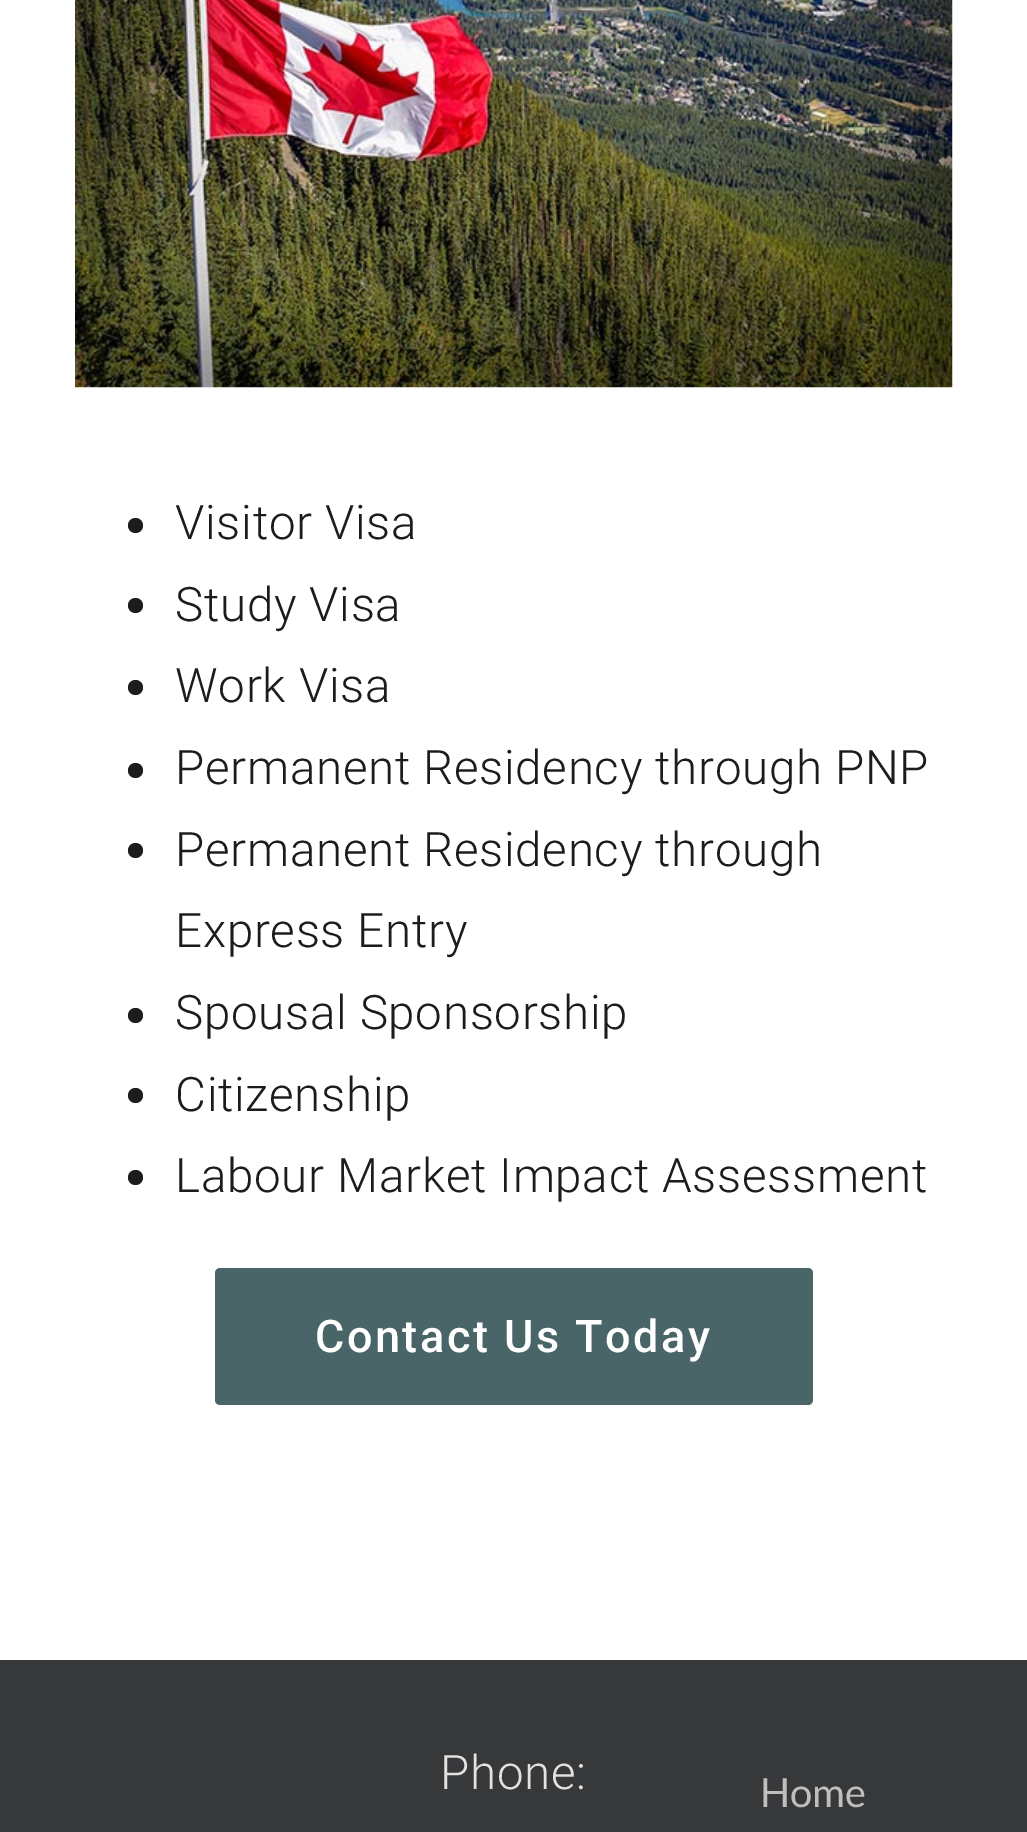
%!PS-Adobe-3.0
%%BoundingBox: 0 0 1027 1832
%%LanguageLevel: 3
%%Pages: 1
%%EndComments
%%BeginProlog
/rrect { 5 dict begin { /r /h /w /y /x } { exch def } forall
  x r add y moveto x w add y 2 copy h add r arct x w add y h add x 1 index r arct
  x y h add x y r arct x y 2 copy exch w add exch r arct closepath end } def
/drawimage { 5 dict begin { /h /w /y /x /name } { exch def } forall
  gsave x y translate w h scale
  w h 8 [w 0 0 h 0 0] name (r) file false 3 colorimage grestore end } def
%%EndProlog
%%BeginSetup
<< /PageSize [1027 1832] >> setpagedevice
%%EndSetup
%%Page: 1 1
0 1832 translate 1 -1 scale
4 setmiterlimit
1 setgray
0 0 1027 1832 rectfill
(images/1.raw) 75 0 878 388 drawimage
0.11 setgray
newpath 135.5 525.5 7.5 0 360 arc closepath fill
newpath 135.5 605.5 7.5 0 360 arc closepath fill
newpath 135.5 687.5 7.5 0 360 arc closepath fill
newpath 135.5 770.5 7.5 0 360 arc closepath fill
newpath 135.5 850.5 7.5 0 360 arc closepath fill
newpath 135.5 1015.5 7.5 0 360 arc closepath fill
newpath 135.5 1095.5 7.5 0 360 arc closepath fill
newpath 135.5 1177.5 7.5 0 360 arc closepath fill
0.29 0.396 0.408 setrgbcolor
215 1268 598 137 5 rrect fill
0.212 0.22 0.224 setrgbcolor
0 1660 1027 172 rectfill
/Roboto-Light [47.5 0 0 -47.5 0 0] selectfont
0.11 setgray
175 539 moveto 0.7 0 (Visitor Visa) ashow
175 621 moveto 0.7 0 (Study Visa) ashow
175 702 moveto 0.7 0 (Work Visa) ashow
175 784 moveto 0.7 0 (Permanent Residency through PNP) ashow
175 866 moveto 0.7 0 (Permanent Residency through) ashow
175 947 moveto 0.7 0 (Express Entry) ashow
175 1029 moveto 0.7 0 (Spousal Sponsorship) ashow
175 1111 moveto 0.7 0 (Citizenship) ashow
175 1192 moveto 0.7 0 (Labour Market Impact Assessment) ashow
/Roboto-Medium [45 0 0 -45 0 0] selectfont
1 setgray
315 1352 moveto 2.5 0 (Contact Us Today) ashow
/Roboto-Light [47.5 0 0 -47.5 0 0] selectfont
0.886 setgray
440 1789 moveto 0.7 0 (Phone:) ashow
/Lato-Regular [40 0 0 -40 0 0] selectfont
0.749 setgray
760 1807 moveto (Home) show
showpage
%%EOF
